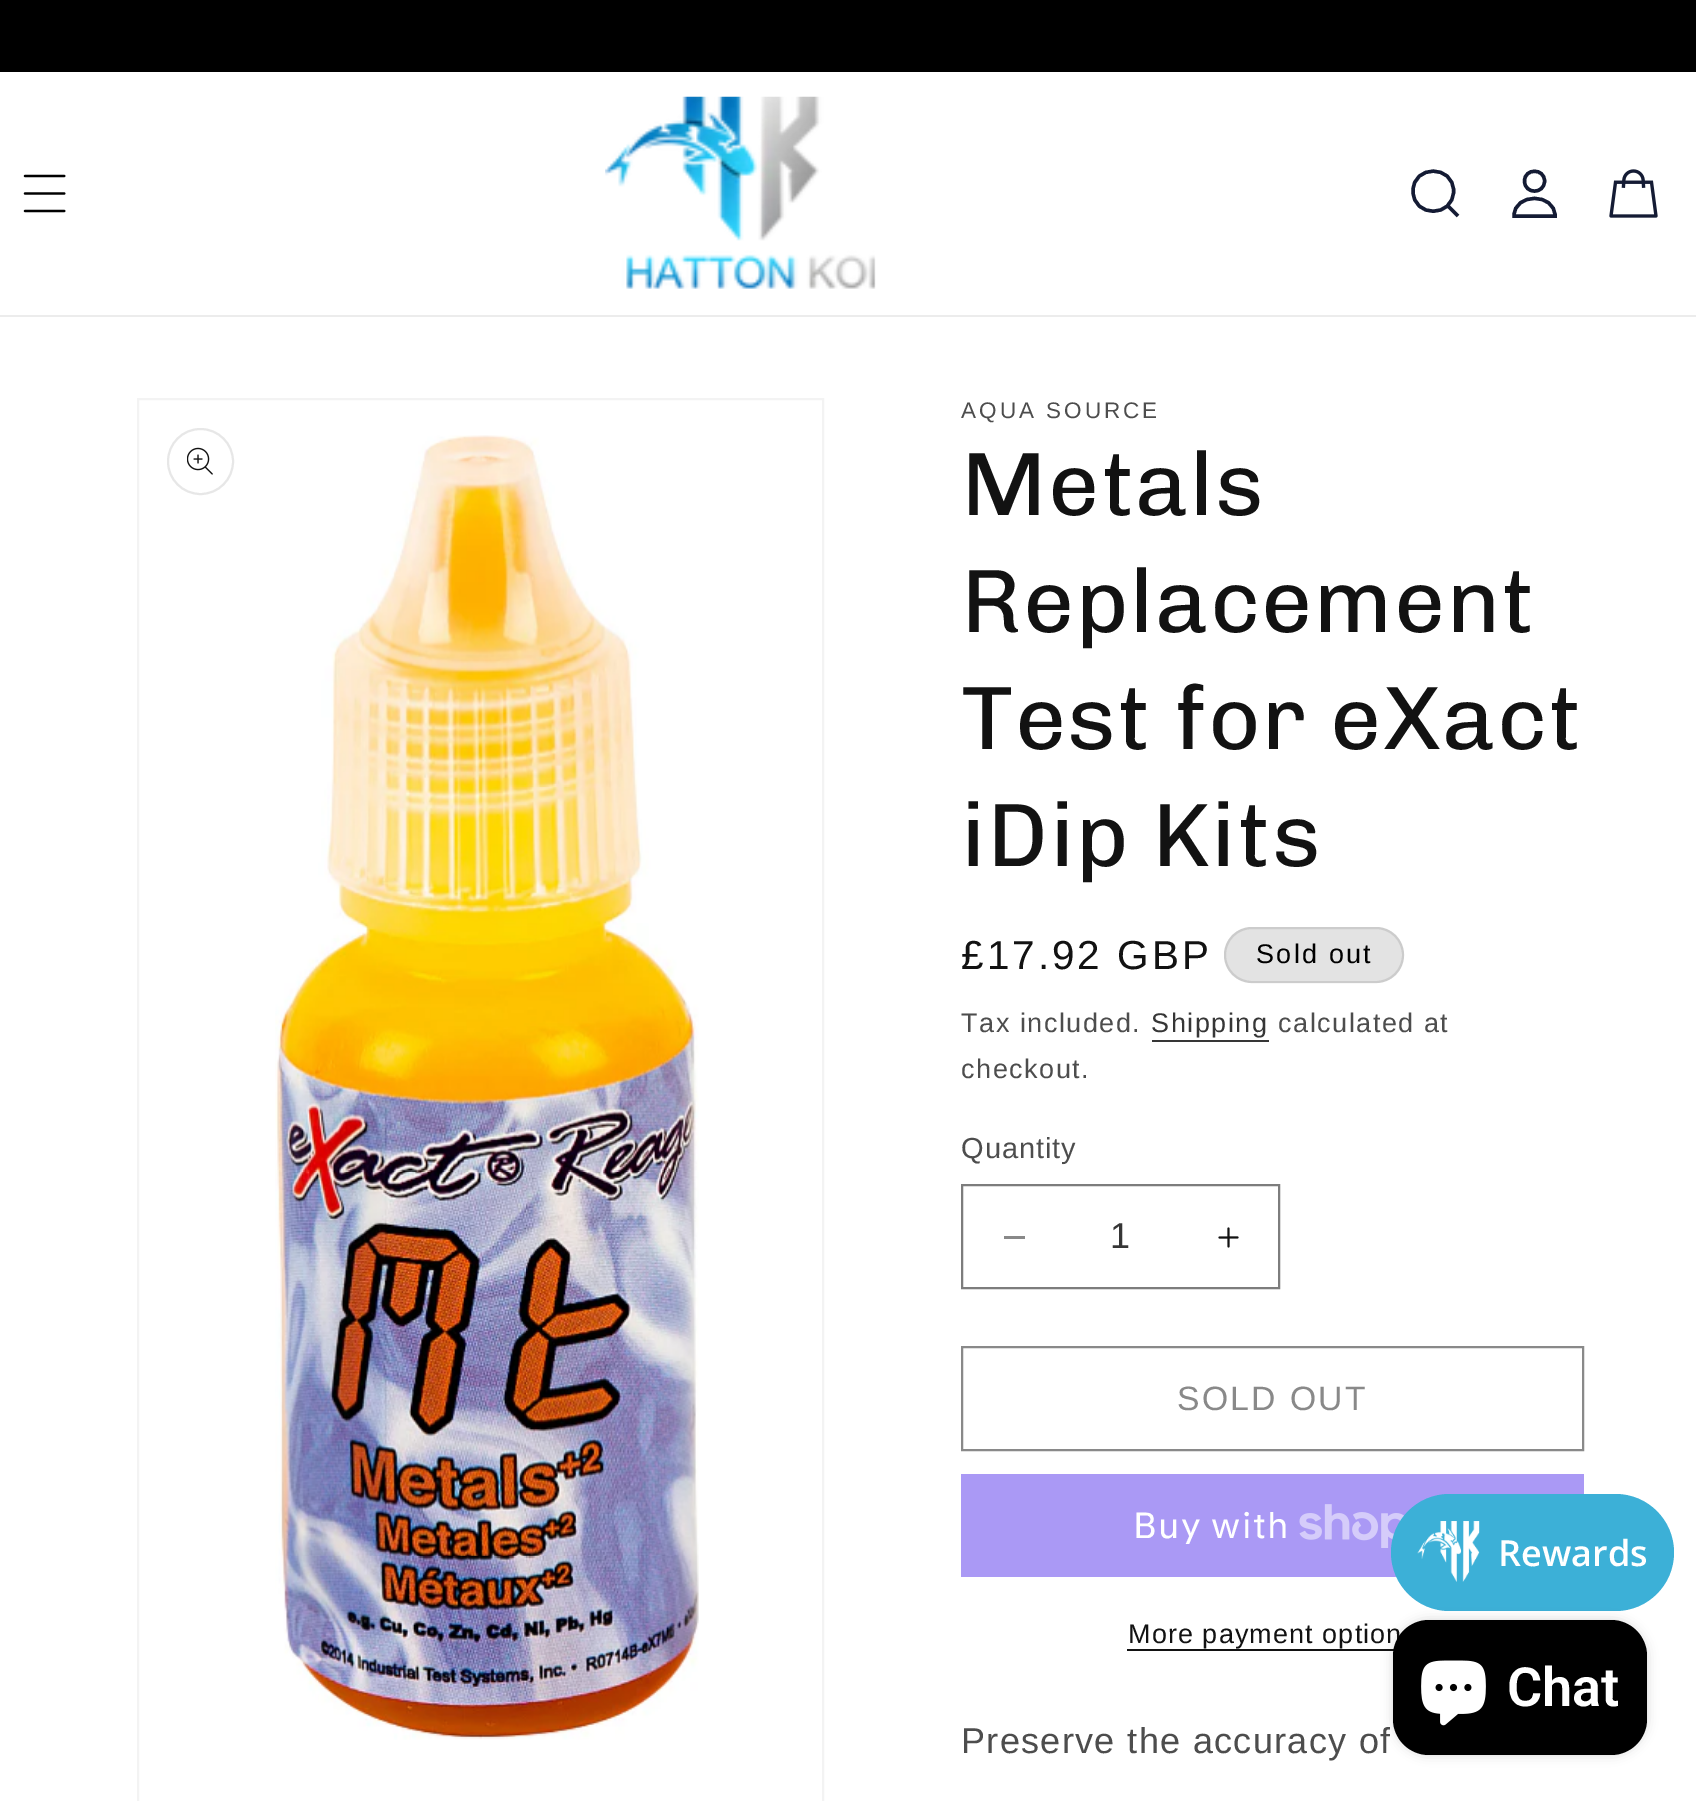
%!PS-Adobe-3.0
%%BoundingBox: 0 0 1696 1801
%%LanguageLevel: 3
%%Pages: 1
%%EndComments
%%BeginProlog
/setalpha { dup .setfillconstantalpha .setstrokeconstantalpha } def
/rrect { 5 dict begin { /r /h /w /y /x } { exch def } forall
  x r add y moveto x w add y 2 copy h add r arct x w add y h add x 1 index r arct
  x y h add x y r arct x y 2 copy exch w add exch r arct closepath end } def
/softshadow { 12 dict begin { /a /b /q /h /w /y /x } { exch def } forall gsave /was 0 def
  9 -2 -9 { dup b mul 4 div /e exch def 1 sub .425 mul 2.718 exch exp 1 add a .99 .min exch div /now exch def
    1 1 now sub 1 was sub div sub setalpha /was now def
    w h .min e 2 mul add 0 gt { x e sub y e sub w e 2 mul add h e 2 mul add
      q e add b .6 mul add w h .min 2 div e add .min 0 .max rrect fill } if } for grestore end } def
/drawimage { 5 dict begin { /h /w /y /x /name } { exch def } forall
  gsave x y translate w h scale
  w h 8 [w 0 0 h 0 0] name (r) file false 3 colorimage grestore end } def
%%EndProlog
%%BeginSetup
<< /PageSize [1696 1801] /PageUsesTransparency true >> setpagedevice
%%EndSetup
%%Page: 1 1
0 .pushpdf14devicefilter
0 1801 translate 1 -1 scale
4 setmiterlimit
1 setgray
0 0 1696 1801 rectfill
0 setgray
0 0 1696 72 rectfill
0.925 setgray
0 315 1696 2 rectfill
(images/1.raw) 23 174 43 39 drawimage
(images/2.raw) 605 96 271 193 drawimage
0.078 0.106 0.204 setrgbcolor
3.4 setlinewidth
1 setlinejoin
newpath 1448 206 moveto 1458 216 lineto 1453.5 191 moveto 1453.5 164.5 1413 164.5 1413 191 curveto 1413 218 1453.5 218 1453.5 191 curveto closepath stroke
0 setlinejoin
newpath 1514 216 moveto 1555 216 lineto 1555 192.5 1514 192.5 1514 216 curveto closepath 1544.5 181 moveto 1544.5 194.5 1524.5 194.5 1524.5 181 curveto 1524.5 168 1544.5 168 1544.5 181 curveto closepath stroke
(images/3.raw) 1609 169 49 49 drawimage
0.953 setgray
2 setlinewidth
138 399 685 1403 rectstroke
0.906 setgray
newpath 200.5 461.5 32.5 0 360 arc closepath stroke
(images/4.raw) 187 447 26 28 drawimage
(images/5.raw) 275 435 424 1305 drawimage
0.89 setgray
1224 927 180 56 28 rrect fill
0.1 setalpha
0 setgray
1225 928 178 54 27 rrect stroke
1 setalpha
0.212 setgray
1152 1040 117 2 rectfill
0.537 setgray
1004 1236 21 3 rectfill
(images/6.raw) 1218 1227 21 21 drawimage
0.49 setgray
962 1185 317 103 rectstroke
0.537 setgray
962 1347 621 103 rectstroke
0.667 0.6 0.961 setrgbcolor
961 1474 623 103 rectfill
(images/7.raw) 1299 1504 106 44 drawimage
0.071 setgray
1127 1649 267 2 rectfill
0.235 0.69 0.843 setrgbcolor
1391 1494 283 117 58.5 rrect fill
(images/8.raw) 1417 1521 63 61 drawimage
0 setgray
1393 1620 254 135 36 5.5 0.15 softshadow
/LiberationSans-Regular [22.5 0 0 -22.5 0 0] selectfont
0.302 setgray
961 418 moveto 3 0 (AQUA SOURCE) ashow
/Chivo-Regular [90 0 0 -90 0 0] selectfont
0.071 setgray
961 515 moveto 1.35 0 (Metals) ashow
961 632 moveto 1.35 0 (Replacement) ashow
961 749 moveto 1.35 0 (Test for eXact) ashow
961 866 moveto 1.35 0 (iDip Kits) ashow
/LiberationSans-Regular [40.5 0 0 -40.5 0 0] selectfont
961 969 moveto 3 0 (£17.92 GBP) ashow
/LiberationSans-Regular [27 0 0 -27 0 0] selectfont
0 setgray
1256 963 moveto 2.25 0 (Sold out) ashow
0.302 setgray
961 1032 moveto 1.5 0 (Tax included.) ashow
0.212 setgray
1151 1032 moveto 1.5 0 (Shipping) ashow
0.302 setgray
1278 1032 moveto 1.5 0 (calculated at) ashow
961 1078 moveto 1.5 0 (checkout.) ashow
/LiberationSans-Regular [29 0 0 -29 0 0] selectfont
961 1158 moveto 1 0 (Quantity) ashow
/LiberationSans-Regular [36 0 0 -36 0 0] selectfont
0.212 setgray
1110 1248 moveto (1) show
/LiberationSans-Regular [33.75 0 0 -33.75 0 0] selectfont
0.537 setgray
1177 1410 moveto 2.25 0 (SOLD OUT) ashow
/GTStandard-Regular [36 0 0 -36 0 0] selectfont
1 setgray
1133 1538 moveto 1.35 0 (Buy with) ashow
/LiberationSans-Regular [27 0 0 -27 0 0] selectfont
0.071 setgray
1128 1643 moveto 1.1 0 (More payment option) ashow
/LiberationSans-Regular [36 0 0 -36 0 0] selectfont
0.302 setgray
961 1753 moveto 1.35 0 (Preserve the accuracy of) ashow
/OpenSans-SemiBold [36 0 0 -36 0 0] selectfont
1 setgray
1498 1566 moveto (Rewards) show
0 setgray
1393 1620 254 135 36 rrect fill
(images/9.raw) 1421 1660 65 66 drawimage
/Roboto-SemiBold [54 0 0 -54 0 0] selectfont
1 setgray
1507 1706 moveto (Chat) show
.poppdf14devicefilter showpage
%%EOF
